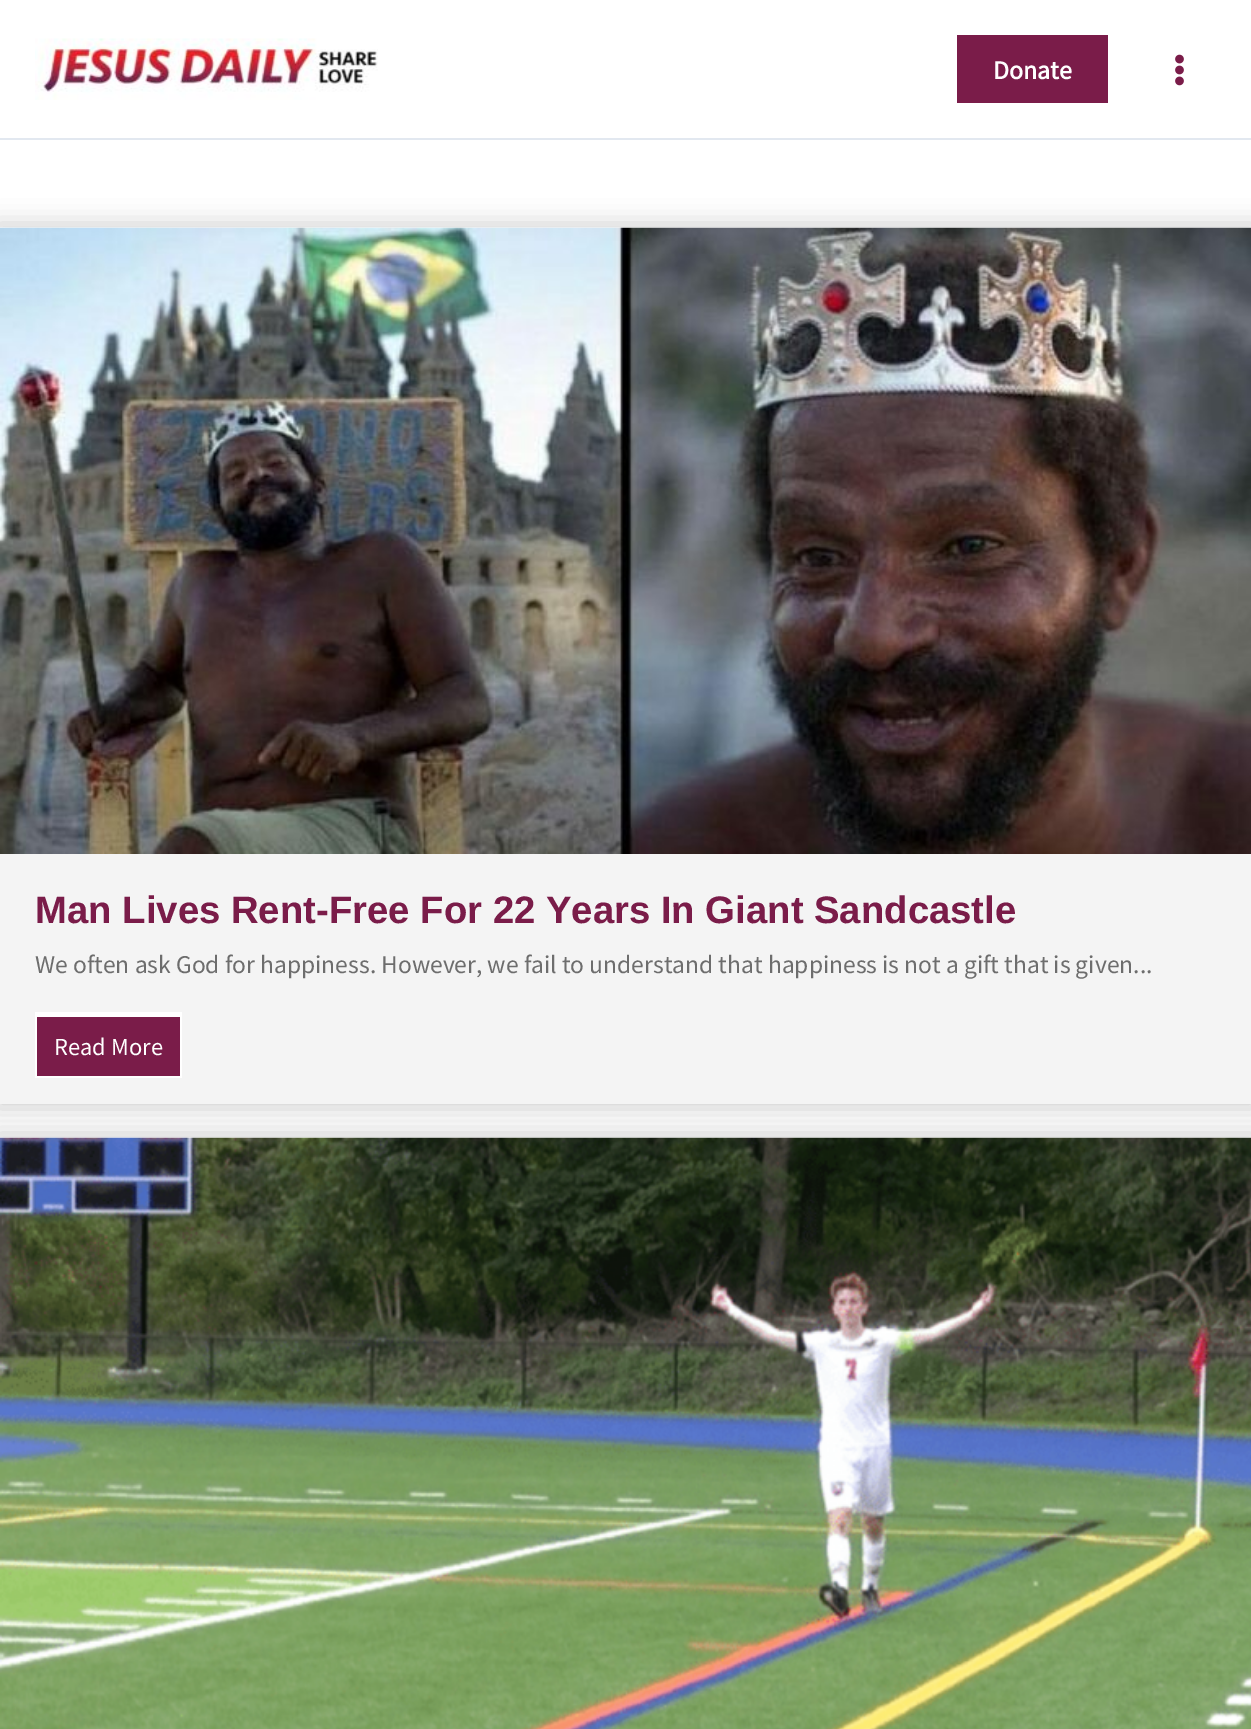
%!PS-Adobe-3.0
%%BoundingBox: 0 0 1251 1729
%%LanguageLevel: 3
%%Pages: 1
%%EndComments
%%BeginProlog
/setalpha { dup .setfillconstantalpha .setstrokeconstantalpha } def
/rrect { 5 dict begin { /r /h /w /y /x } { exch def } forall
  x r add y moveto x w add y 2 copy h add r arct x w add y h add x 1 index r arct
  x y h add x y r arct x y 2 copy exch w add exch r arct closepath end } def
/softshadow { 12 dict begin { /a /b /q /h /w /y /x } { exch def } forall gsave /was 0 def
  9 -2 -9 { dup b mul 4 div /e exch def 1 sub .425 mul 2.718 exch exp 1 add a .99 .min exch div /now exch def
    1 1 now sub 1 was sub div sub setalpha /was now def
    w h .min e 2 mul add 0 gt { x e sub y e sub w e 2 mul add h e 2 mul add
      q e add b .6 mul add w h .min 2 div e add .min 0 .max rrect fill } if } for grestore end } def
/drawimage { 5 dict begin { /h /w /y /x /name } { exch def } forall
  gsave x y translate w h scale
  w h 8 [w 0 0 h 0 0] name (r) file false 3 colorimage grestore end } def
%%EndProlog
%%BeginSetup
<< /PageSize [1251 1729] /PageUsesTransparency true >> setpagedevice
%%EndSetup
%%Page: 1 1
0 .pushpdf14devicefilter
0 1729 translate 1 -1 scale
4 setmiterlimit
1 setgray
0 0 1251 1729 rectfill
0.886 0.91 0.941 setrgbcolor
0 138 1251 2 rectfill
(images/1.raw) 35 38 343 62 drawimage
0.478 0.11 0.286 setrgbcolor
957 35 151 68 rectfill
(images/2.raw) 1175 54 9 32 drawimage
0.749 setgray
-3 224 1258 884 0 11.5 0.75 softshadow
0.957 setgray
0 854 1251 250 rectfill
(images/3.raw) 0 227 1251 627 drawimage
0.478 0.11 0.286 setrgbcolor
37 1017 143 59 rectfill
1 setgray
35 1012 147 5 rectfill
180 1012 2 66 rectfill
35 1076 147 2 rectfill
35 1012 2 66 rectfill
0.749 setgray
-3 1134 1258 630 0 11.5 0.75 softshadow
(images/4.raw) 0 1137 1251 592 drawimage
/SourceSansPro-Bold [26 0 0 -26 0 0] selectfont
1 setgray
993 79 moveto (Donate) show
/LiberationSans-Bold [38.3 0 0 -38.3 0 0] selectfont
0.478 0.11 0.286 setrgbcolor
35 923 moveto (Man Lives Rent-Free For 22 Years In Giant Sandcastle) show
/SourceSansPro-Regular [25.55 0 0 -25.55 0 0] selectfont
0.427 setgray
35 973 moveto (We often ask God for happiness. However, we fail to understand that happiness is not a gift that is given...) show
/SourceSansPro-Regular [24.5 0 0 -24.5 0 0] selectfont
1 setgray
54 1055 moveto (Read More) show
.poppdf14devicefilter showpage
%%EOF
